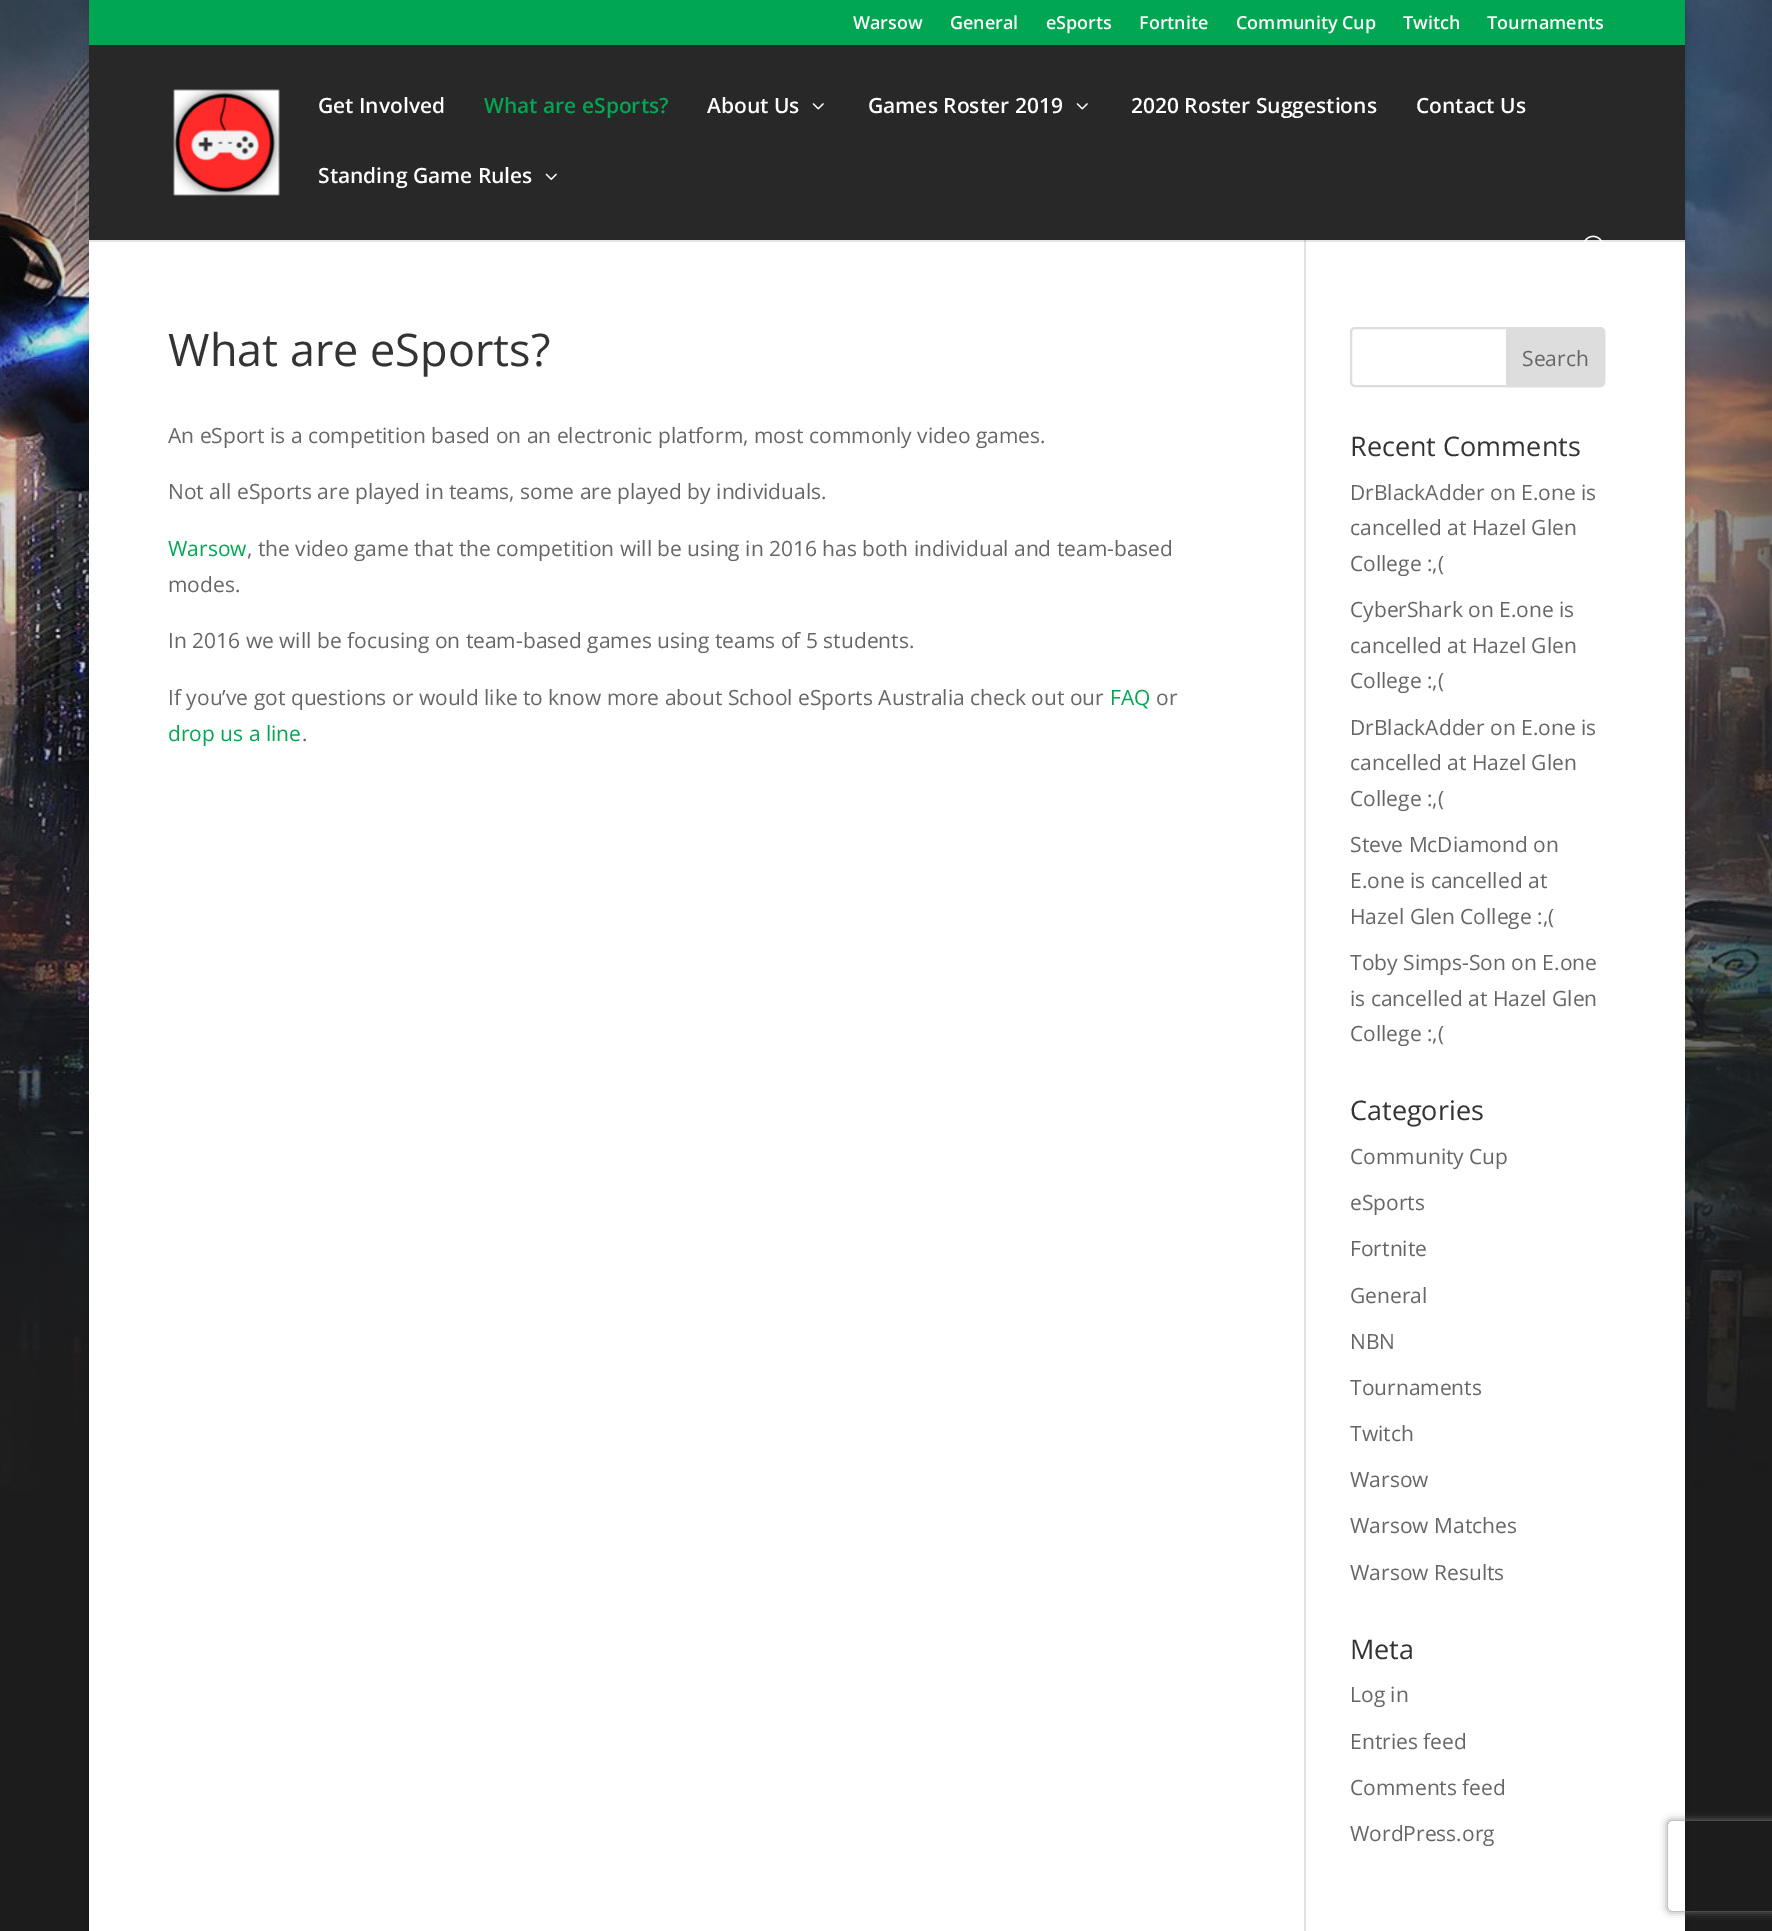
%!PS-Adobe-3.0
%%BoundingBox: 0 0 1772 1931
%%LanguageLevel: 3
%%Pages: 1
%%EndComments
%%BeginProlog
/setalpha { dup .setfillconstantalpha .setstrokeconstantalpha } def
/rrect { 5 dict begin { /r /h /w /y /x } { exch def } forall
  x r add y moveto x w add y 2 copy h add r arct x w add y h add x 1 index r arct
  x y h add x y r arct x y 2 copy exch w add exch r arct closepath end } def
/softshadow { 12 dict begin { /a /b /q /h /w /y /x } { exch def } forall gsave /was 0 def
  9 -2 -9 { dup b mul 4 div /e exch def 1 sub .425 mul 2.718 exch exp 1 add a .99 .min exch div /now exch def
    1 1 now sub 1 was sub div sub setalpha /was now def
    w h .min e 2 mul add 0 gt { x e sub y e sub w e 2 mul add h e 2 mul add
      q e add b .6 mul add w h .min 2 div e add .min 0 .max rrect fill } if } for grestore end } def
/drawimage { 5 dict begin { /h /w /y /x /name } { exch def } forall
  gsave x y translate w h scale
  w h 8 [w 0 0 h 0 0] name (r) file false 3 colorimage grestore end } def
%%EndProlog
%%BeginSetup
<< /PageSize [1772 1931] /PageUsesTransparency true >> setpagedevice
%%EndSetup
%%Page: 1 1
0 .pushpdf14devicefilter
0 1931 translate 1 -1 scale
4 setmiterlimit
1 setgray
0 0 1772 1931 rectfill
(images/1.raw) 0 0 1772 1931 drawimage
0 setgray
89 0 1596 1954 0 7.5 0.2 softshadow
0 0.651 0.322 setrgbcolor
89 0 1596 45 rectfill
1 setgray
89 240 1596 1691 rectfill
0.886 setgray
1304 240 2 1691 rectfill
0.1 setalpha
0 setgray
newpath 89 240 moveto 89 242 lineto 1685 242 lineto 1685 47 lineto 1684 47 lineto 1684 240 lineto closepath fill
1 setalpha
0.157 setgray
89 45 1596 195 rectfill
(images/2.raw) 173 89 107 107 drawimage
(images/3.raw) 812 103 12 7 drawimage
(images/3.raw) 1076 103 12 7 drawimage
(images/4.raw) 545 173 12 7 drawimage
(images/5.raw) 1583 235 20 7 drawimage
0.867 setgray
2 setlinewidth
1351 328 253 58 4 rrect stroke
newpath 1507 328 moveto 1600 328 lineto 1602 328 1604 330 1604 332 curveto 1604 382 lineto 1604 384 1602 386 1600 386 curveto 1507 386 lineto closepath gsave fill grestore
stroke
gsave
newpath 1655 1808 moveto 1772 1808 lineto 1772 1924 lineto 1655 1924 lineto closepath 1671 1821 moveto 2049 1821 lineto 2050.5 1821 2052 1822.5 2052 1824 curveto 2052 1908 lineto 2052 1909.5 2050.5 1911 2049 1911 curveto 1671 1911 lineto 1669.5 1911 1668 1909.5 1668 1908 curveto 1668 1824 lineto 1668 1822.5 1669.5 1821 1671 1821 curveto closepath eoclip newpath
0.502 setgray
1668 1821 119 90 3 4 1 softshadow
grestore
/OpenSans-SemiBold [18 0 0 -18 0 0] selectfont
1 setgray
853 29 moveto (Warsow) show
950 29 moveto (General) show
1046 29 moveto (eSports) show
1139 29 moveto (Fortnite) show
1236 29 moveto (Community Cup) show
1403 29 moveto (Twitch) show
1487 29 moveto (Tournaments) show
/OpenSans-SemiBold [21 0 0 -21 0 0] selectfont
318 113 moveto (Get Involved) show
0 0.651 0.322 setrgbcolor
484 113 moveto (What are eSports?) show
1 setgray
707 113 moveto (About Us) show
868 113 moveto (Games Roster 2019) show
1131 113 moveto (2020 Roster Suggestions) show
1416 113 moveto (Contact Us) show
318 183 moveto (Standing Game Rules) show
/OpenSans-Regular [45 0 0 -45 0 0] selectfont
0.2 setgray
168 366 moveto (What are eSports?) show
/OpenSans-Regular [21 0 0 -21 0 0] selectfont
0.4 setgray
168 443 moveto (An eSport is a competition based on an electronic platform, most commonly video games.) show
168 499 moveto (Not all eSports are played in teams, some are played by individuals.) show
0 0.651 0.322 setrgbcolor
168 556 moveto (Warsow) show
0.4 setgray
247 556 moveto (, the video game that the competition will be using in 2016 has both individual and team-based) show
168 592 moveto (modes.) show
168 648 moveto (In 2016 we will be focusing on team-based games using teams of 5 students.) show
168 705 moveto (If you’ve got questions or would like to know more about School eSports Australia check out our) show
0 0.651 0.322 setrgbcolor
1110 705 moveto (FAQ) show
0.4 setgray
1156 705 moveto (or) show
0 0.651 0.322 setrgbcolor
168 741 moveto (drop us a line) show
0.4 setgray
302 741 moveto (.) show
1522 366 moveto (Search) show
/OpenSans-Regular [27 0 0 -27 0 0] selectfont
0.2 setgray
1350 456 moveto (Recent Comments) show
/OpenSans-Regular [21 0 0 -21 0 0] selectfont
0.4 setgray
1350 500 moveto (DrBlackAdder on E.one is) show
1350 535 moveto (cancelled at Hazel Glen) show
1350 571 moveto (College :,\() show
1350 617 moveto (CyberShark on E.one is) show
1350 653 moveto (cancelled at Hazel Glen) show
1350 688 moveto (College :,\() show
1350 735 moveto (DrBlackAdder on E.one is) show
1350 770 moveto (cancelled at Hazel Glen) show
1350 806 moveto (College :,\() show
1350 852 moveto (Steve McDiamond on) show
1350 888 moveto (E.one is cancelled at) show
1350 924 moveto (Hazel Glen College :,\() show
1350 970 moveto (Toby Simps-Son on E.one) show
1350 1006 moveto (is cancelled at Hazel Glen) show
1350 1041 moveto (College :,\() show
/OpenSans-Regular [27 0 0 -27 0 0] selectfont
0.2 setgray
1350 1120 moveto (Categories) show
/OpenSans-Regular [21 0 0 -21 0 0] selectfont
0.4 setgray
1350 1164 moveto (Community Cup) show
1350 1210 moveto (eSports) show
1350 1256 moveto (Fortnite) show
1350 1303 moveto (General) show
1350 1349 moveto (NBN) show
1350 1395 moveto (Tournaments) show
1350 1441 moveto (Twitch) show
1350 1487 moveto (Warsow) show
1350 1533 moveto (Warsow Matches) show
1350 1580 moveto (Warsow Results) show
/OpenSans-Regular [27 0 0 -27 0 0] selectfont
0.2 setgray
1350 1659 moveto (Meta) show
/OpenSans-Regular [21 0 0 -21 0 0] selectfont
0.4 setgray
1350 1702 moveto (Log in) show
1350 1749 moveto (Entries feed) show
1350 1795 moveto (Comments feed) show
1350 1841 moveto (WordPress.org) show
.poppdf14devicefilter showpage
%%EOF
